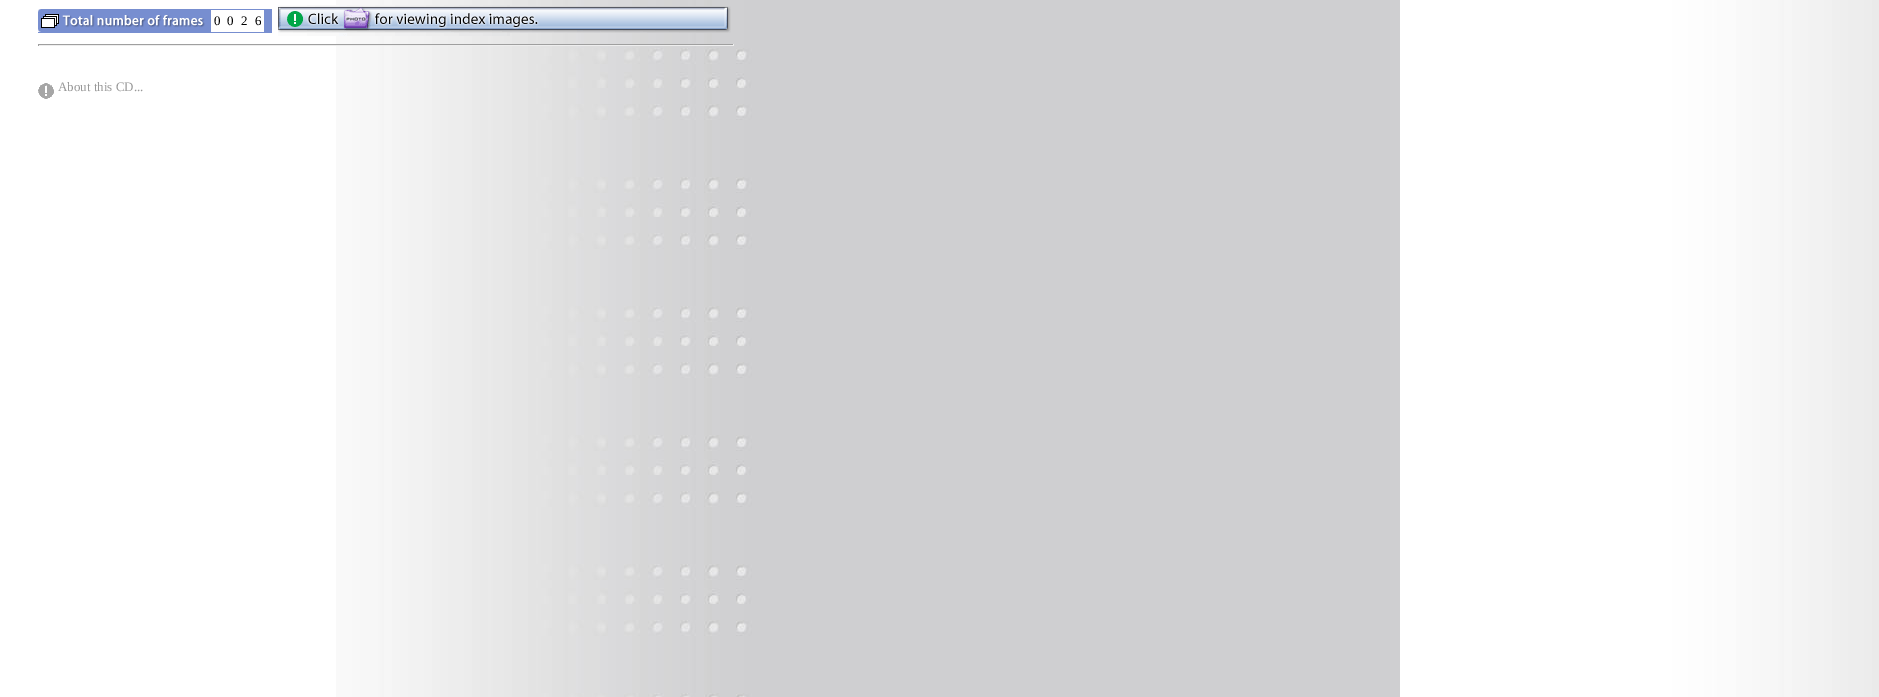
%!PS-Adobe-3.0
%%BoundingBox: 0 0 1879 697
%%LanguageLevel: 3
%%Pages: 1
%%EndComments
%%BeginProlog
/drawimage { 5 dict begin { /h /w /y /x /name } { exch def } forall
  gsave x y translate w h scale
  w h 8 [w 0 0 h 0 0] name (r) file false 3 colorimage grestore end } def
%%EndProlog
%%BeginSetup
<< /PageSize [1879 697] >> setpagedevice
%%EndSetup
%%Page: 1 1
0 697 translate 1 -1 scale
4 setmiterlimit
1 setgray
0 0 1879 697 rectfill
(images/1.raw) 336 0 1543 697 drawimage
0.467 0.557 0.816 setrgbcolor
38 9 234 24 rectfill
(images/2.raw) 38 9 167 23 drawimage
1 setgray
211 10 53 22 rectfill
(images/3.raw) 278 5 232 31 drawimage
(images/4.raw) 510 6 221 27 drawimage
0.624 setgray
38 44 696 1 rectfill
0.933 setgray
733 44 1 2 rectfill
38 45 696 1 rectfill
0.624 setgray
38 44 1 2 rectfill
(images/5.raw) 38 83 16 16 drawimage
/LiberationSerif-Regular [13 0 0 -13 0 0] selectfont
0 setgray
214 25 moveto (0) show
227 25 moveto (0) show
241 25 moveto (2) show
255 25 moveto (6) show
0.6 setgray
58 91 moveto (About this CD...) show
showpage
%%EOF
